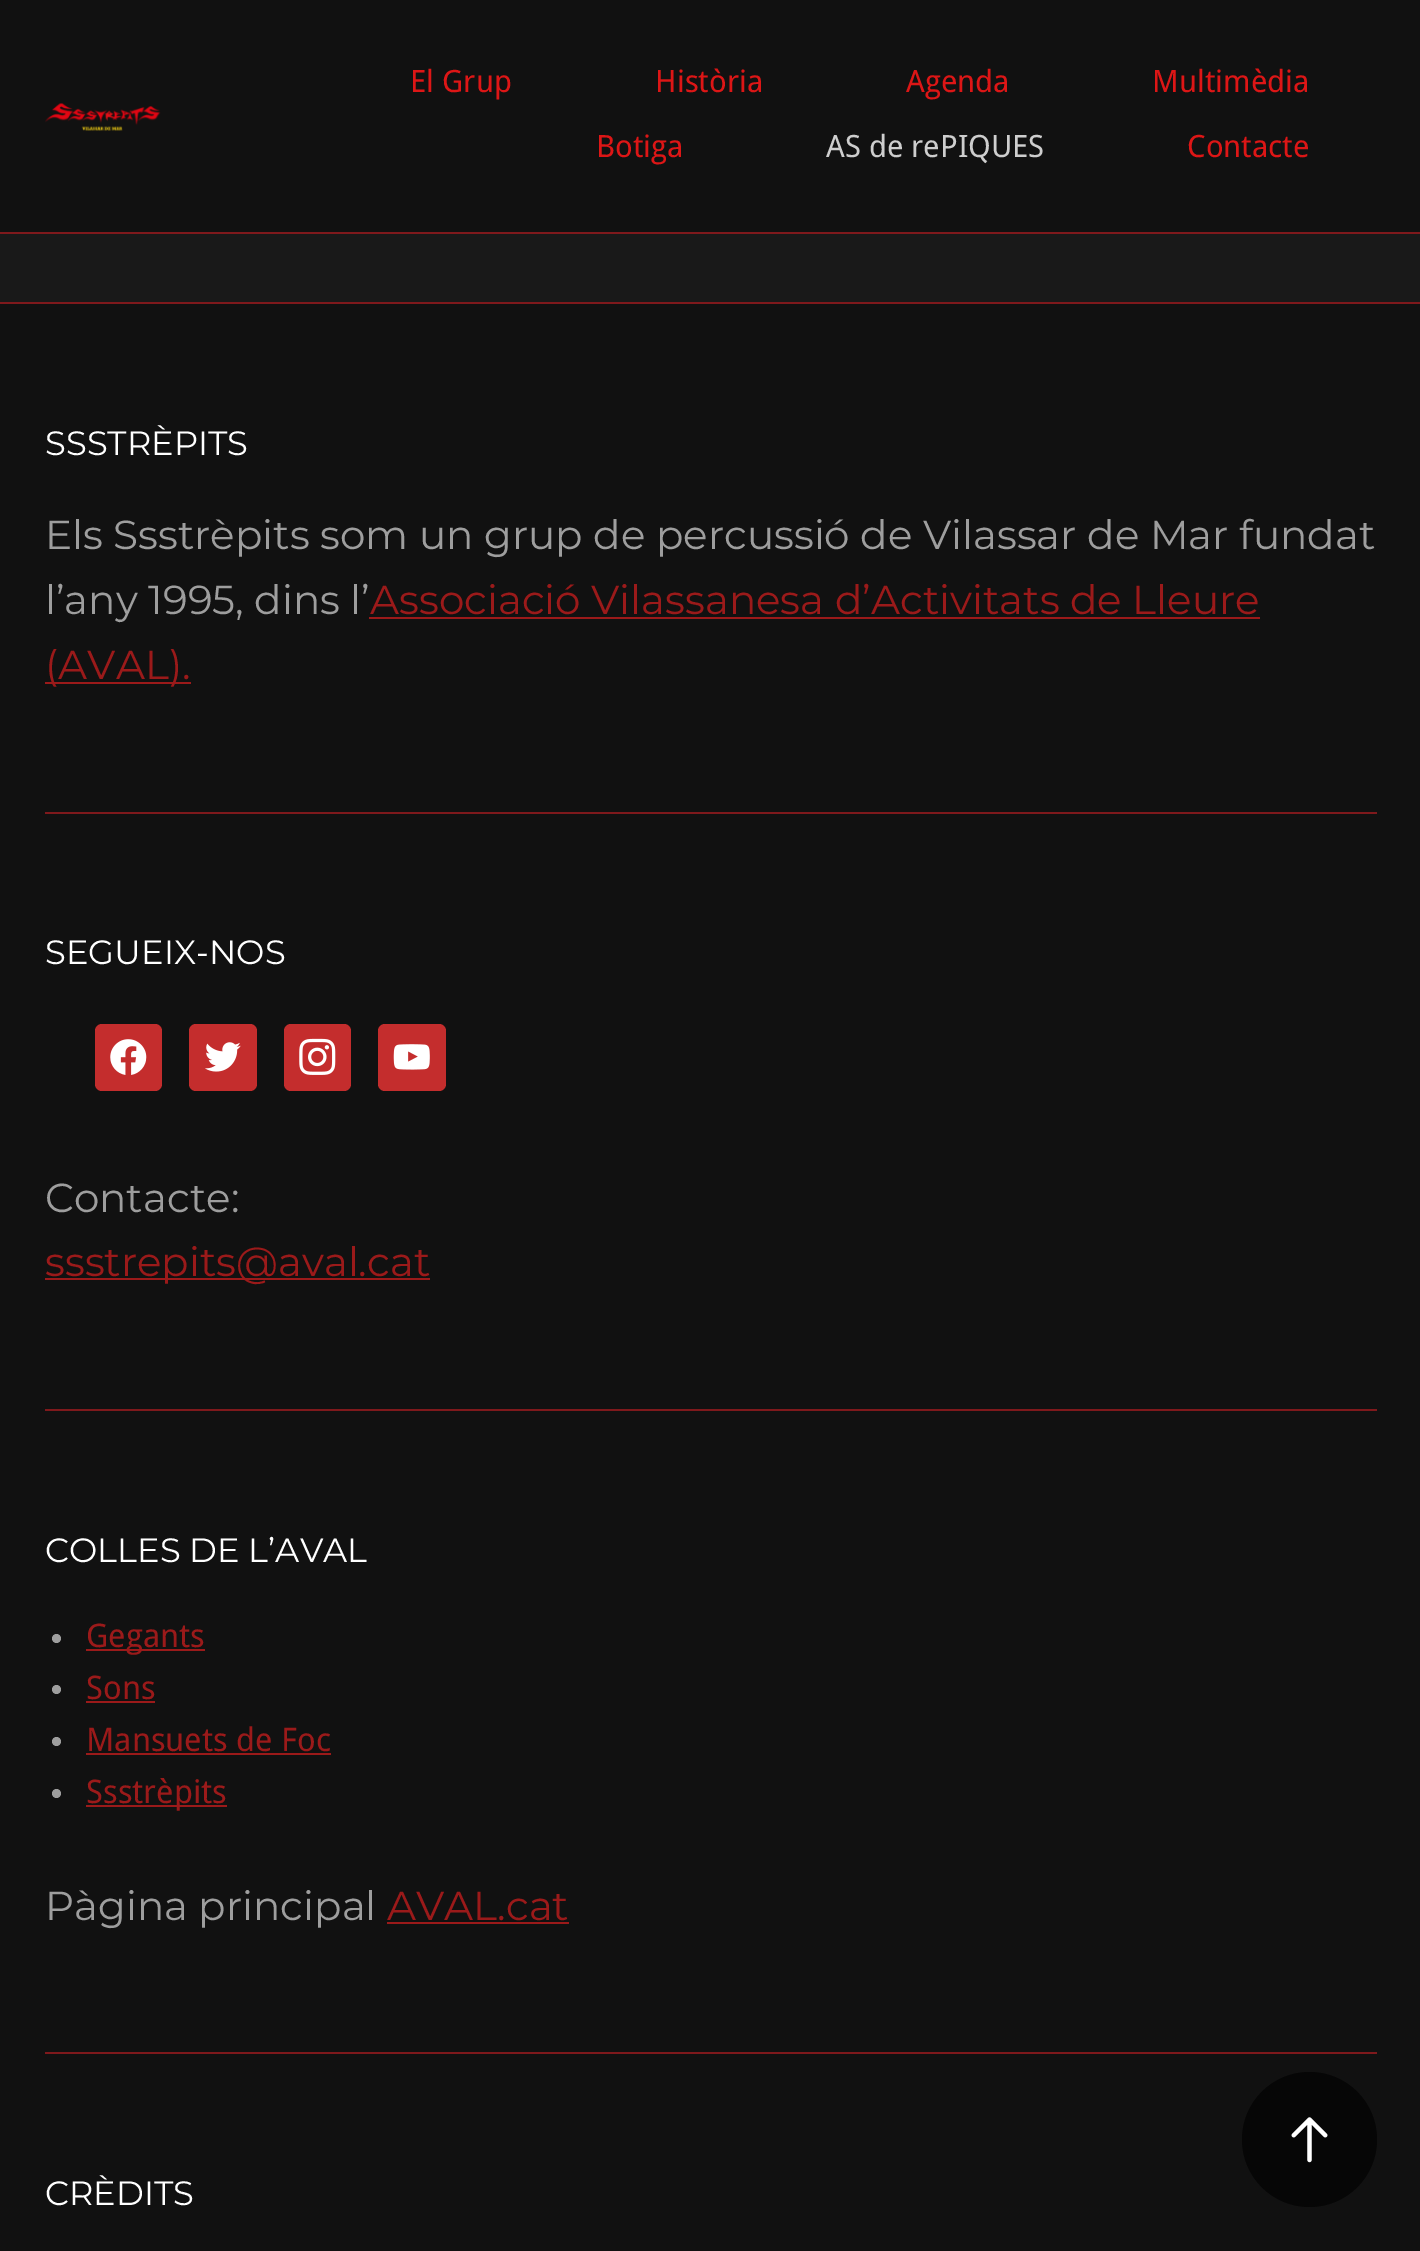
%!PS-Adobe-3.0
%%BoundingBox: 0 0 1420 2251
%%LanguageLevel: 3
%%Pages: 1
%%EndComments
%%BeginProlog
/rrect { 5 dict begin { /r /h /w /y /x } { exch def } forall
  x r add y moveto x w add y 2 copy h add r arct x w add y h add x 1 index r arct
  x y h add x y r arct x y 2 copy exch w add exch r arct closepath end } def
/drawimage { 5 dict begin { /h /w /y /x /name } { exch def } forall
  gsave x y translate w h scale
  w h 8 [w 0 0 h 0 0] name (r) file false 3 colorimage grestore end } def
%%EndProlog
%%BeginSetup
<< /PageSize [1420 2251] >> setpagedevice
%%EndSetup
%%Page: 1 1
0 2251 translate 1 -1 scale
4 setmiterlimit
0.098 setgray
0 0 1420 2251 rectfill
0.067 setgray
0 0 1420 232 rectfill
0.498 0.098 0.11 setrgbcolor
0 232 1420 2 rectfill
(images/1.raw) 45 103 116 28 drawimage
0.067 setgray
0 304 1420 1947 rectfill
0.498 0.098 0.11 setrgbcolor
0 302 1420 2 rectfill
45 812 1332 2 rectfill
0.608 0.102 0.102 setrgbcolor
369 617 891 2 rectfill
45 682 146 2 rectfill
0.498 0.098 0.11 setrgbcolor
45 1409 1332 2 rectfill
0.769 0.176 0.176 setrgbcolor
95 1024 67 67 7 rrect fill
(images/2.raw) 110 1039 37 36 drawimage
189 1024 68 67 7 rrect fill
(images/3.raw) 205 1042 36 30 drawimage
284 1024 67 67 7 rrect fill
(images/4.raw) 299 1038 37 37 drawimage
378 1024 68 67 7 rrect fill
(images/5.raw) 393 1044 37 26 drawimage
0.608 0.102 0.102 setrgbcolor
45 1278 385 2 rectfill
0.498 0.098 0.11 setrgbcolor
45 2052 1332 2 rectfill
0.62 setgray
newpath 56.5 1638.5 4.5 0 360 arc closepath fill
0.608 0.102 0.102 setrgbcolor
86 1649 119 2 rectfill
0.62 setgray
newpath 56.5 1689.5 4.5 0 360 arc closepath fill
0.608 0.102 0.102 setrgbcolor
86 1701 69 2 rectfill
0.62 setgray
newpath 56.5 1741.5 4.5 0 360 arc closepath fill
0.608 0.102 0.102 setrgbcolor
86 1753 245 2 rectfill
0.62 setgray
newpath 56.5 1793.5 4.5 0 360 arc closepath fill
0.608 0.102 0.102 setrgbcolor
86 1805 141 2 rectfill
387 1922 182 2 rectfill
0.024 setgray
newpath 1309.5 2139.5 67.5 0 360 arc closepath fill
(images/6.raw) 1291 2117 37 46 drawimage
/DroidSans-Regular [30.75 0 0 -30.75 0 0] selectfont
0.867 0.086 0.086 setrgbcolor
410 92 moveto (El Grup) show
655 92 moveto (Història) show
906 92 moveto (Agenda) show
1152 92 moveto (Multimèdia) show
596 157 moveto (Botiga) show
0.808 setgray
826 157 moveto (AS de rePIQUES) show
0.867 0.086 0.086 setrgbcolor
1187 157 moveto (Contacte) show
/Montserrat-Thin [33.75 0 0 -33.75 0 0] selectfont
1 setgray
45 455 moveto (SSSTRÈPITS) show
/Montserrat-Thin [40.5 0 0 -40.5 0 0] selectfont
0.62 setgray
45 549 moveto (Els Ssstrèpits som un grup de percussió de Vilassar de Mar fundat) show
45 614 moveto (l’any 1995, dins l’) show
0.608 0.102 0.102 setrgbcolor
370 614 moveto (Associació Vilassanesa d’Activitats de Lleure) show
45 679 moveto (\(AVAL\).) show
/Montserrat-Thin [33.75 0 0 -33.75 0 0] selectfont
1 setgray
45 964 moveto (SEGUEIX-NOS) show
/Montserrat-Thin [40.5 0 0 -40.5 0 0] selectfont
0.62 setgray
45 1212 moveto (Contacte:) show
0.608 0.102 0.102 setrgbcolor
45 1276 moveto (ssstrepits@aval.cat) show
/Montserrat-Thin [33.75 0 0 -33.75 0 0] selectfont
1 setgray
45 1562 moveto (COLLES DE L’AVAL) show
/DroidSans-Regular [32.5 0 0 -32.5 0 0] selectfont
0.608 0.102 0.102 setrgbcolor
86 1647 moveto (Gegants) show
86 1699 moveto (Sons) show
86 1751 moveto (Mansuets de Foc) show
86 1803 moveto (Ssstrèpits) show
/Montserrat-Thin [40.5 0 0 -40.5 0 0] selectfont
0.62 setgray
45 1920 moveto (Pàgina principal) show
0.608 0.102 0.102 setrgbcolor
387 1920 moveto (AVAL.cat) show
/Montserrat-Thin [33.75 0 0 -33.75 0 0] selectfont
1 setgray
45 2205 moveto (CRÈDITS) show
showpage
%%EOF
